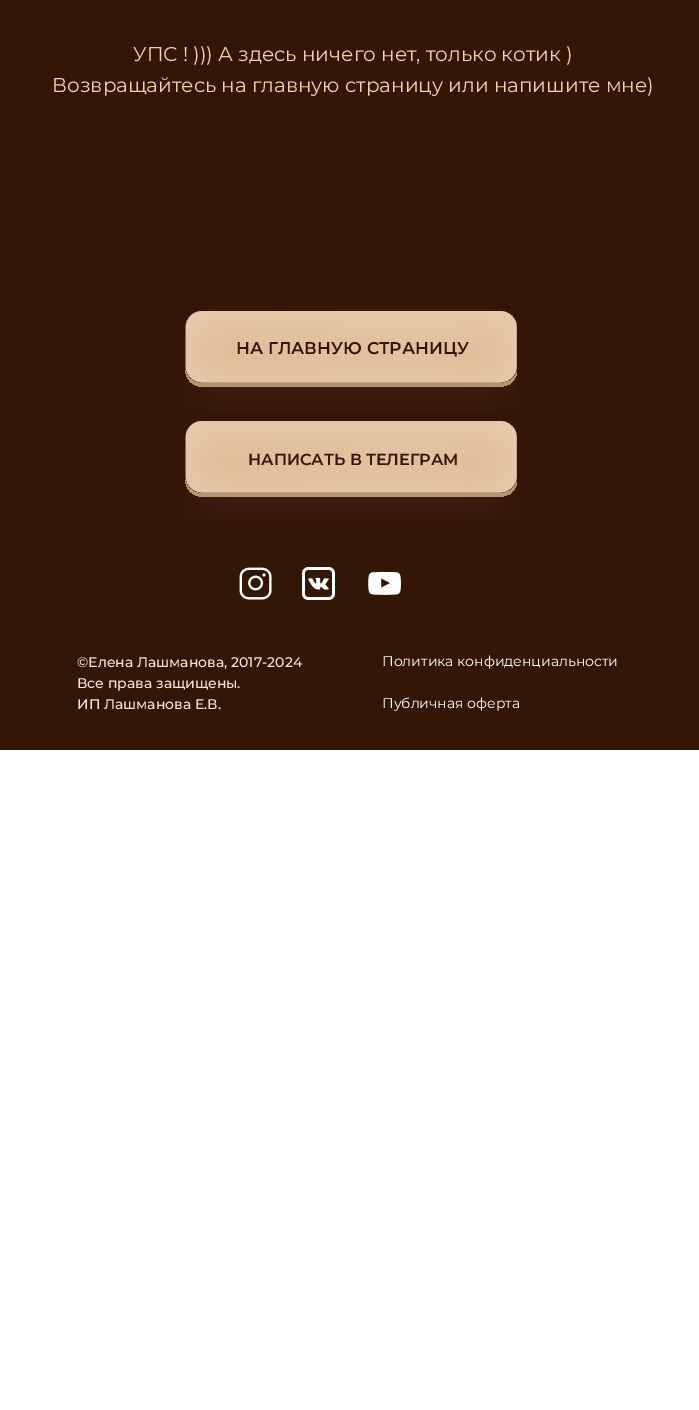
%!PS-Adobe-3.0
%%BoundingBox: 0 0 699 1410
%%LanguageLevel: 3
%%Pages: 1
%%EndComments
%%BeginProlog
/drawimage { 5 dict begin { /h /w /y /x /name } { exch def } forall
  gsave x y translate w h scale
  w h 8 [w 0 0 h 0 0] name (r) file false 3 colorimage grestore end } def
%%EndProlog
%%BeginSetup
<< /PageSize [699 1410] >> setpagedevice
%%EndSetup
%%Page: 1 1
0 1410 translate 1 -1 scale
4 setmiterlimit
1 setgray
0 0 699 1410 rectfill
0.2 0.086 0.02 setrgbcolor
0 0 699 750 rectfill
(images/1.raw) 185 311 332 100 drawimage
(images/2.raw) 185 421 332 99 drawimage
(images/3.raw) 239 567 33 33 drawimage
(images/4.raw) 302 567 33 33 drawimage
(images/5.raw) 368 571 33 24 drawimage
/Montserrat-Regular [20 0 0 -20 0 0] selectfont
0.957 0.82 0.678 setrgbcolor
133 61 moveto (УПС ! \)\)\) А здесь ничего нет, только котик \)) show
52 92 moveto (Возвращайтесь на главную страницу или напишите мне\)) show
/Montserrat-SemiBold [17 0 0 -17 0 0] selectfont
0.2 0.086 0.02 setrgbcolor
236 354 moveto (НА ГЛАВНУЮ СТРАНИЦУ) show
/Montserrat-SemiBold [16 0 0 -16 0 0] selectfont
248 465 moveto (НАПИСАТЬ В ТЕЛЕГРАМ) show
/Montserrat-Medium [14 0 0 -14 0 0] selectfont
0.98 0.898 0.824 setrgbcolor
77 667 moveto (©Елена Лашманова, 2017-2024) show
77 688 moveto (Все права защищены.) show
77 709 moveto (ИП Лашманова Е.В.) show
/Montserrat-Regular [14 0 0 -14 0 0] selectfont
1 setgray
382 666 moveto (Политика конфиденциальности) show
382 708 moveto (Публичная оферта) show
showpage
%%EOF
